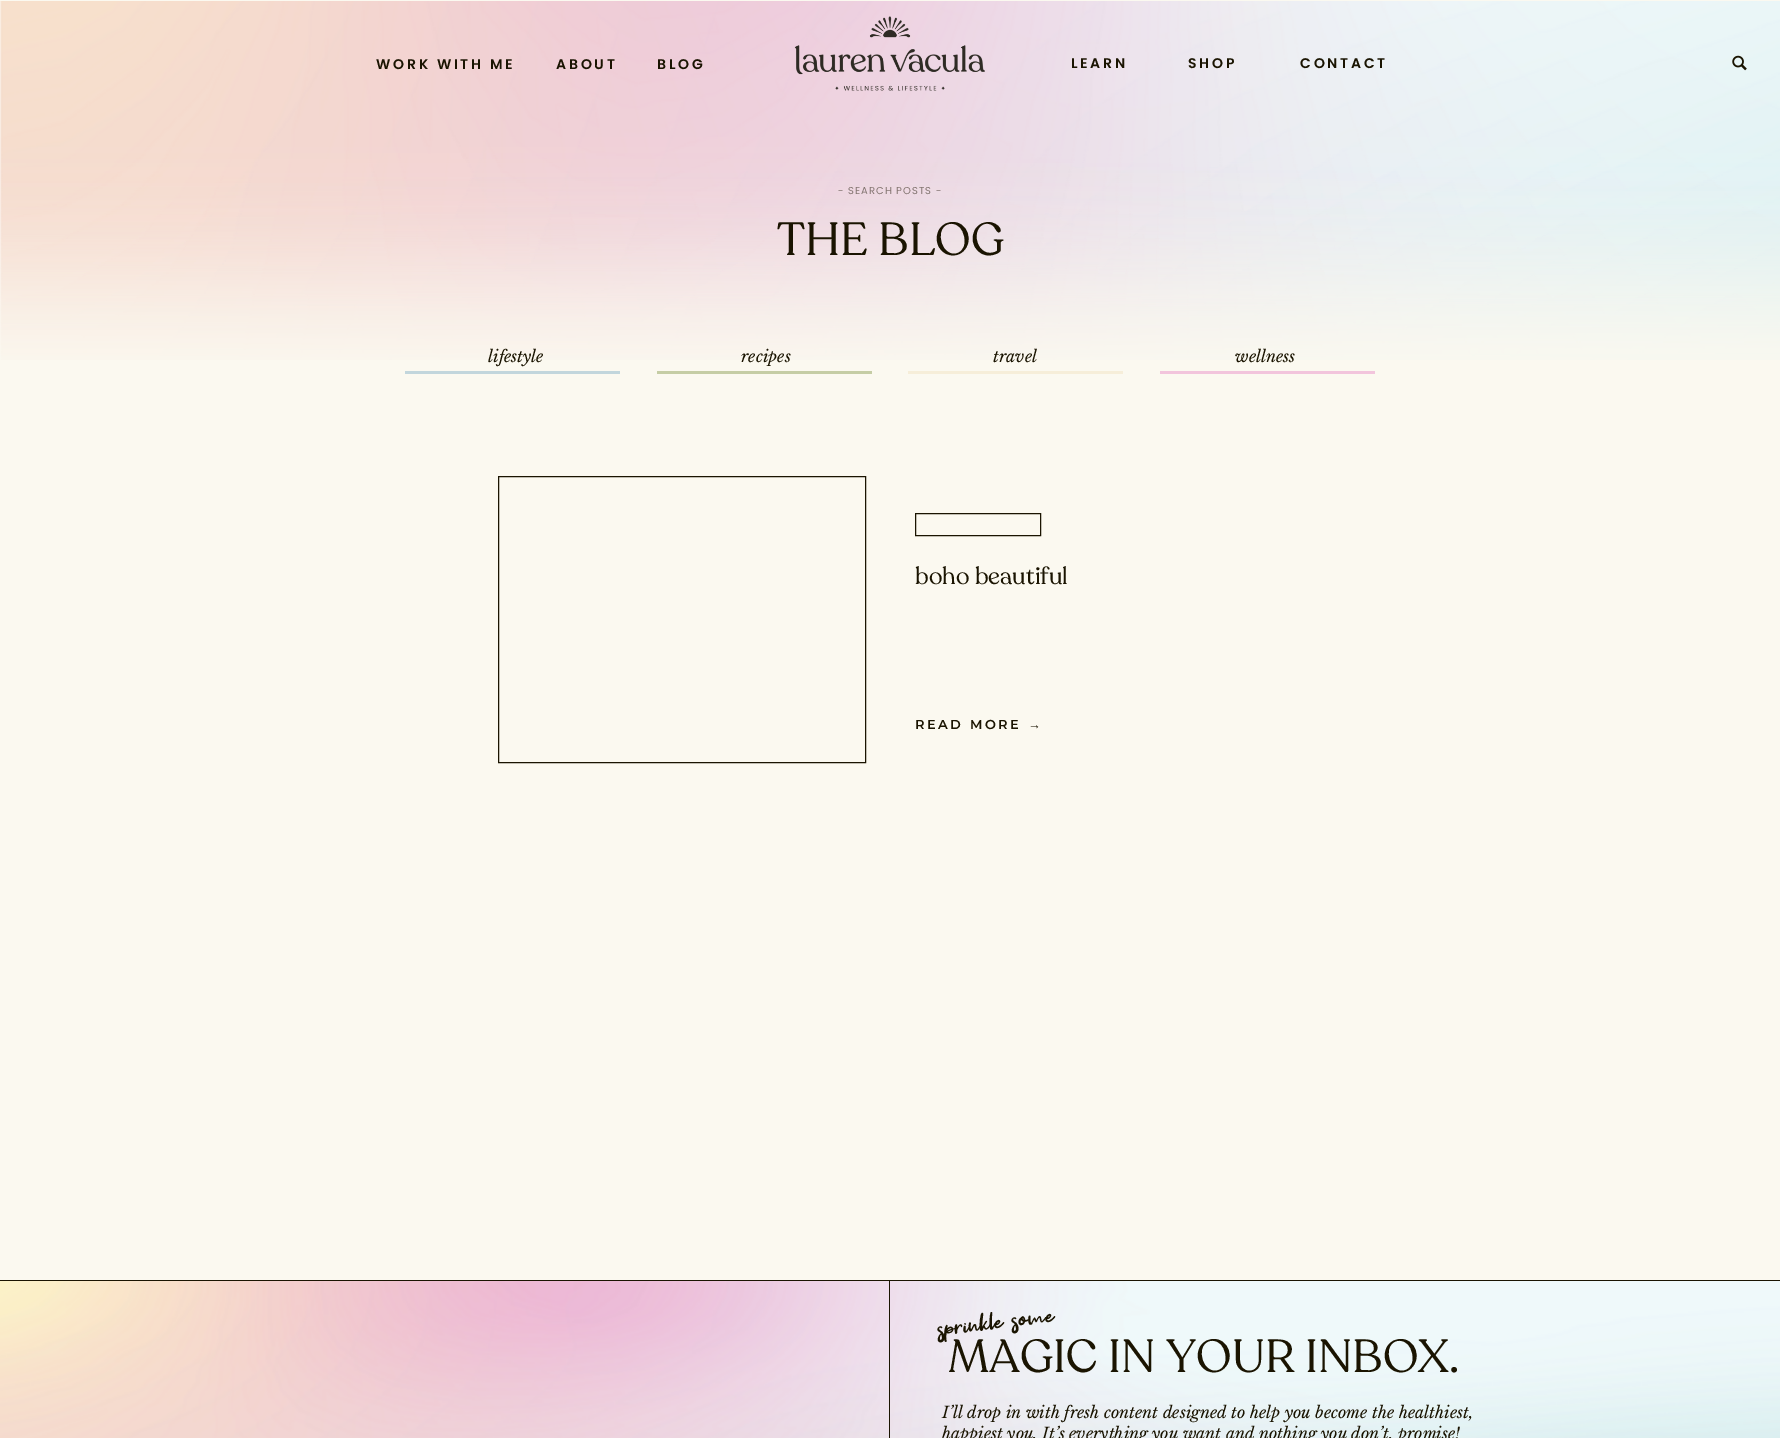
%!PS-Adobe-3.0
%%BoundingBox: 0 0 1780 1438
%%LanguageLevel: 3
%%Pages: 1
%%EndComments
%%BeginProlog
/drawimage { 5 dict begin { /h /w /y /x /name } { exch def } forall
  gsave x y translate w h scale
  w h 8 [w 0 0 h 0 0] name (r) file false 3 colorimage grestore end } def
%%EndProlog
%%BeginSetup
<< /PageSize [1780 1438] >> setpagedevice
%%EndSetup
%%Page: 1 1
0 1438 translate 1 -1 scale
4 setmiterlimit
0.984 0.976 0.941 setrgbcolor
0 0 1780 1438 rectfill
(images/3.raw) 0 1 1780 359 drawimage
(images/1.raw) 794 16 191 75 drawimage
(images/2.raw) 1732 55 15 16 drawimage
0.761 0.839 0.863 setrgbcolor
405 371 215 3 rectfill
0.773 0.804 0.647 setrgbcolor
657 371 215 3 rectfill
0.965 0.933 0.851 setrgbcolor
908 371 215 3 rectfill
0.949 0.773 0.863 setrgbcolor
1160 371 215 3 rectfill
0.102 0.078 0.004 setrgbcolor
498.5 476.5 367 286 rectstroke
915.5 513.5 125 22 rectstroke
(images/4.raw) 0 1281 1780 157 drawimage
0 1280 1780 1 rectfill
889 1281 1 157 rectfill
/Poppins-SemiBold [14 0 0 -14 0 0] selectfont
376 69 moveto 2.75 0 (WORK WITH ME) ashow
556 69 moveto 2.75 0 (ABOUT) ashow
657 69 moveto 2.75 0 (BLOG) ashow
1071 68 moveto 2.75 0 (LEARN) ashow
1188 68 moveto 2.75 0 (SHOP) ashow
1300 68 moveto 2.75 0 (CONTACT) ashow
/Poppins-Regular [10 0 0 -10 0 0] selectfont
0.518 0.463 0.447 setrgbcolor
838 194 moveto 1 0 (- SEARCH POSTS -) ashow
/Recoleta-Regular [46 0 0 -46 0 0] selectfont
0.102 0.078 0.004 setrgbcolor
777 255 moveto (THE BLOG) show
/LibreBaskerville-Italic [16 0 0 -16 0 0] selectfont
488 362 moveto (lifestyle) show
741 362 moveto (recipes) show
993 362 moveto (travel) show
1235 362 moveto (wellness) show
/Recoleta-Regular [24 0 0 -24 0 0] selectfont
915 584 moveto (boho beautiful) show
/Montserrat-SemiBold [13 0 0 -13 0 0] selectfont
915 729 moveto 2.5 0 (READ MORE) ashow
/LiberationSerif-Regular [13 0 0 -13 0 0] selectfont
1028 729 moveto 2.5 0 (→) ashow
/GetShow-Regular [35 0 0 -35 0 0] selectfont
gsave 939 1341 translate -7 rotate 0 0 moveto (sprinkle some) show grestore
/Recoleta-Regular [46 0 0 -46 0 0] selectfont
948 1372 moveto (MAGIC IN YOUR INBOX.) show
/LibreBaskerville-Italic [16 0 0 -16 0 0] selectfont
942 1418 moveto (I’ll drop in with fresh content designed to help you become the healthiest,) show
942 1439 moveto (happiest you. It’s everything you want and nothing you don’t, promise!) show
showpage
%%EOF
